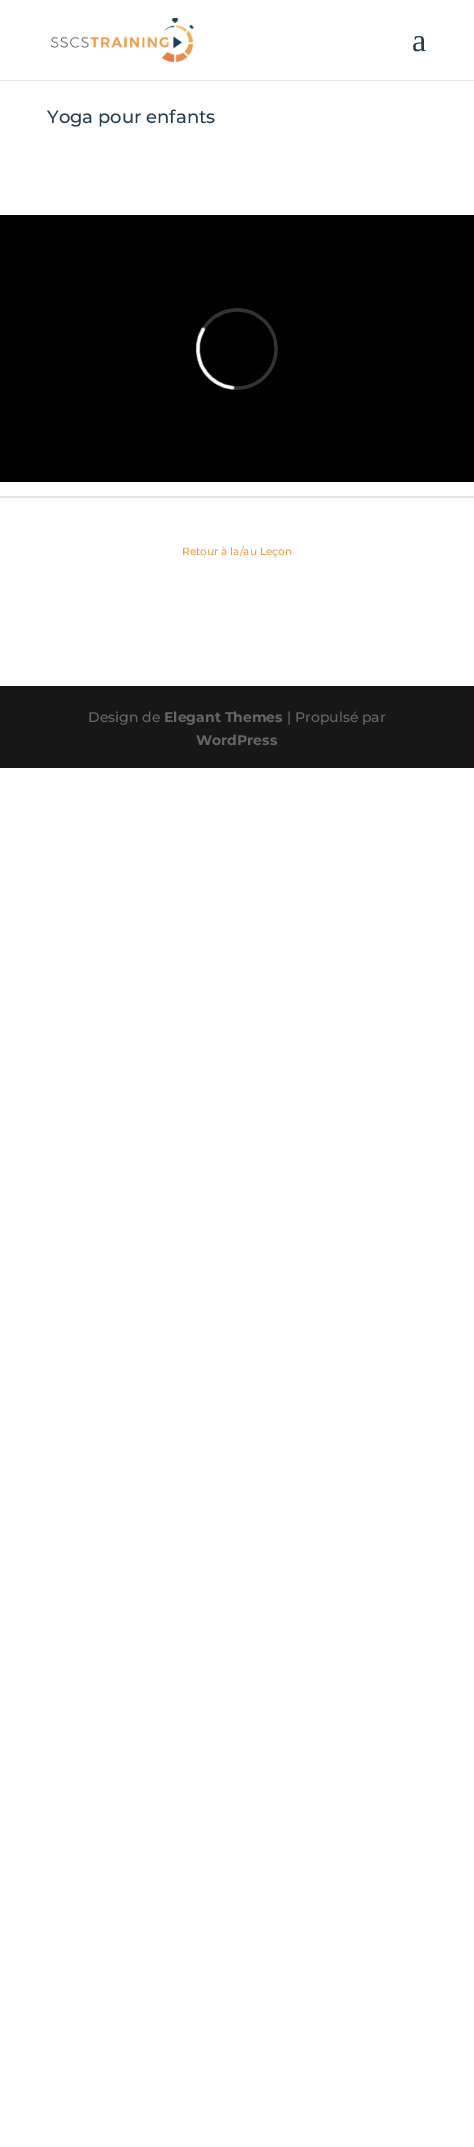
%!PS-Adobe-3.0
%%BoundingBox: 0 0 474 2147
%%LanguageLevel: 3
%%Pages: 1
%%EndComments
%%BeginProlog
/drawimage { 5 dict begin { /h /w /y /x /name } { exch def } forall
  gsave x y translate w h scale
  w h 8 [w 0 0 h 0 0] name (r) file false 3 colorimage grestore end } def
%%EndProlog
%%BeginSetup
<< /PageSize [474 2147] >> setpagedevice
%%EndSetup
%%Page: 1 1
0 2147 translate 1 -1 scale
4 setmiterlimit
1 setgray
0 0 474 2147 rectfill
0.902 setgray
0 80 474 1 rectfill
(images/1.raw) 51 18 143 44 drawimage
(images/2.raw) 0 215 474 267 drawimage
0.886 0.906 0.929 setrgbcolor
0 496 474 2 rectfill
0.09 setgray
0 686 474 82 rectfill
/LiberationSerif-Regular [32 0 0 -32 0 0] selectfont
0.153 0.239 0.294 setrgbcolor
412 51 moveto (a) show
/Montserrat-Thin [18 0 0 -18 0 0] selectfont
47 123 moveto (Yoga pour enfants) show
/Montserrat-Thin [10.5 0 0 -10.5 0 0] selectfont
0.91 0.627 0.318 setrgbcolor
182 555 moveto (Retour à la/au Leçon) show
/Montserrat-Thin [14 0 0 -14 0 0] selectfont
0.4 setgray
88 722 moveto (Design de) show
/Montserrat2-Thin [14 0 0 -14 0 0] selectfont
164 722 moveto (Elegant Themes) show
/Montserrat-Thin [14 0 0 -14 0 0] selectfont
287 722 moveto (| Propulsé par) show
/Montserrat2-Thin [14 0 0 -14 0 0] selectfont
196 745 moveto (WordPress) show
showpage
%%EOF
